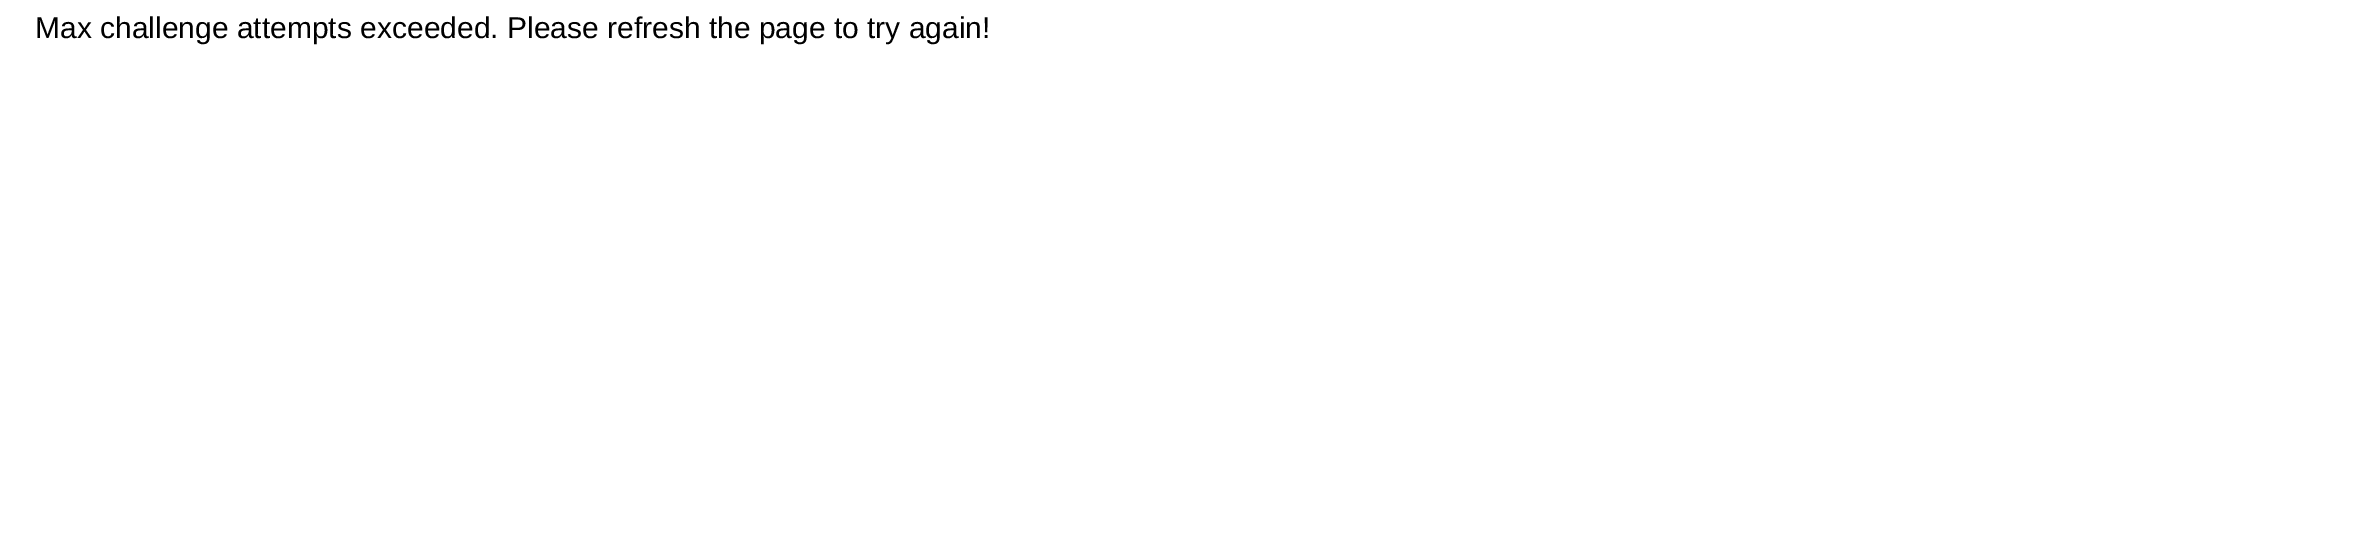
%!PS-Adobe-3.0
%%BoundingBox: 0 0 2379 549
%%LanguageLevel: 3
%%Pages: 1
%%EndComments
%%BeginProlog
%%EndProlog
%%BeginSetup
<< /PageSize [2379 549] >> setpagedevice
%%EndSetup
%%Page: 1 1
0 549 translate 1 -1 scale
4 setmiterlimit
1 setgray
0 0 2379 549 rectfill
/LiberationSans-Regular [30 0 0 -30 0 0] selectfont
0 setgray
35 38 moveto (Max challenge attempts exceeded. Please refresh the page to try again!) show
showpage
%%EOF
